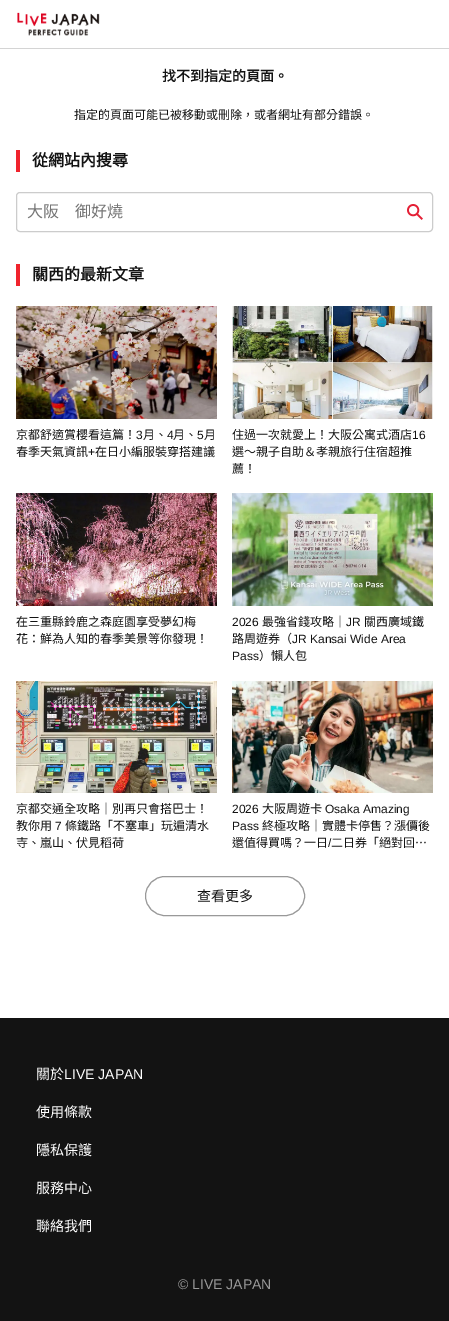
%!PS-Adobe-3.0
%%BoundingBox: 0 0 449 1321
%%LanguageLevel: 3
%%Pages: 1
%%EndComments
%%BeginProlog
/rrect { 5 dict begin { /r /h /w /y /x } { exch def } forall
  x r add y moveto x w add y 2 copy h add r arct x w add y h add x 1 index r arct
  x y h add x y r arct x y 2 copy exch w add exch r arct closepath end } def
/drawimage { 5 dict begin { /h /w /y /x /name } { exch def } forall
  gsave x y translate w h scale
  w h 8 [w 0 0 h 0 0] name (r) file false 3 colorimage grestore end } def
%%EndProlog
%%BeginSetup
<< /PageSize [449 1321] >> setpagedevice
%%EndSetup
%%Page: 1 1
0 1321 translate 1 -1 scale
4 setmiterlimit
1 setgray
0 0 449 1321 rectfill
0.831 setgray
0 48 449 1 rectfill
(images/1.raw) 17 12 83 24 drawimage
0.941 0.137 0.176 setrgbcolor
16 150 4 22 rectfill
0.8 setgray
16.5 192.5 416 39 3.5 rrect stroke
(images/2.raw) 407 204 16 16 drawimage
0.941 0.137 0.176 setrgbcolor
16 264 4 22 rectfill
(images/3.raw) 16 306 201 113 drawimage
(images/4.raw) 232 306 201 113 drawimage
(images/5.raw) 16 493 201 113 drawimage
(images/6.raw) 232 493 201 113 drawimage
(images/7.raw) 16 681 201 112 drawimage
(images/8.raw) 232 681 201 112 drawimage
0.6 setgray
145.5 876.5 159 39 19.5 rrect stroke
0.075 setgray
0 1018 449 303 rectfill
/NotoSansCJKTC-Bold [14 0 0 -14 0 0] selectfont
162 81 moveto (找不到指定的頁面。) show
/NotoSansCJKTC-Regular [12 0 0 -12 0 0] selectfont
74 119 moveto (指定的頁面可能已被移動或刪除，或者網址有部分錯誤。) show
/NotoSansCJKTC-Bold [16 0 0 -16 0 0] selectfont
32 166 moveto (從網站內搜尋) show
/NotoSansCJKTC-Regular [16 0 0 -16 0 0] selectfont
0.459 setgray
27 217 moveto (大阪　御好燒) show
/NotoSansCJKTC-Bold [16 0 0 -16 0 0] selectfont
0.075 setgray
32 280 moveto (關西的最新文章) show
/NotoSansCJKTC-Regular [12 0 0 -12 0 0] selectfont
16 439 moveto (京都舒適賞櫻看這篇！) show
/LiberationSans-Regular [12 0 0 -12 0 0] selectfont
136 439 moveto (3) show
/NotoSansCJKTC-Regular [12 0 0 -12 0 0] selectfont
143 439 moveto (月、) show
/LiberationSans-Regular [12 0 0 -12 0 0] selectfont
167 439 moveto (4) show
/NotoSansCJKTC-Regular [12 0 0 -12 0 0] selectfont
173 439 moveto (月、) show
/LiberationSans-Regular [12 0 0 -12 0 0] selectfont
197 439 moveto (5) show
/NotoSansCJKTC-Regular [12 0 0 -12 0 0] selectfont
204 439 moveto (月) show
16 456 moveto (春季天氣資訊) show
/LiberationSans-Regular [12 0 0 -12 0 0] selectfont
88 456 moveto (+) show
/NotoSansCJKTC-Regular [12 0 0 -12 0 0] selectfont
95 456 moveto (在日小編服裝穿搭建議) show
232 439 moveto (住過一次就愛上！大阪公寓式酒店) show
/LiberationSans-Regular [12 0 0 -12 0 0] selectfont
412 439 moveto (16) show
/NotoSansCJKTC-Regular [12 0 0 -12 0 0] selectfont
232 456 moveto (選～親子自助＆孝親旅行住宿超推) show
232 473 moveto (薦！) show
16 626 moveto (在三重縣鈴鹿之森庭園享受夢幻梅) show
16 643 moveto (花：鮮為人知的春季美景等你發現！) show
/LiberationSans-Regular [12 0 0 -12 0 0] selectfont
232 626 moveto (2026) show
/NotoSansCJKTC-Regular [12 0 0 -12 0 0] selectfont
262 626 moveto (最強省錢攻略｜) show
/LiberationSans-Regular [12 0 0 -12 0 0] selectfont
346 626 moveto (JR) show
/NotoSansCJKTC-Regular [12 0 0 -12 0 0] selectfont
364 626 moveto (關西廣域鐵) show
232 643 moveto (路周遊券（) show
/LiberationSans-Regular [12 0 0 -12 0 0] selectfont
292 643 moveto (JR Kansai Wide Area) show
232 660 moveto (Pass) show
/NotoSansCJKTC-Regular [12 0 0 -12 0 0] selectfont
259 660 moveto (）懶人包) show
16 813 moveto (京都交通全攻略｜別再只會搭巴士！) show
16 830 moveto (教你用) show
/LiberationSans-Regular [12 0 0 -12 0 0] selectfont
55 830 moveto (7) show
/NotoSansCJKTC-Regular [12 0 0 -12 0 0] selectfont
65 830 moveto (條鐵路「不塞車」玩遍清水) show
16 847 moveto (寺、嵐山、伏見稻荷) show
/LiberationSans-Regular [12 0 0 -12 0 0] selectfont
232 813 moveto (2026) show
/NotoSansCJKTC-Regular [12 0 0 -12 0 0] selectfont
262 813 moveto (大阪周遊卡) show
/LiberationSans-Regular [12 0 0 -12 0 0] selectfont
325 813 moveto (Osaka Amazing) show
232 830 moveto (Pass) show
/NotoSansCJKTC-Regular [12 0 0 -12 0 0] selectfont
262 830 moveto (終極攻略｜實體卡停售？漲價後) show
232 847 moveto (還值得買嗎？一日) show
/LiberationSans-Regular [12 0 0 -12 0 0] selectfont
328 847 moveto (/) show
/NotoSansCJKTC-Regular [12 0 0 -12 0 0] selectfont
331 847 moveto (二日券「絕對回…) show
/NotoSansCJKTC-Regular [14 0 0 -14 0 0] selectfont
197 901 moveto (查看更多) show
1 setgray
36 1079 moveto (關於) show
/LiberationSans-Regular [14 0 0 -14 0 0] selectfont
64 1079 moveto (LIVE JAPAN) show
/NotoSansCJKTC-Regular [14 0 0 -14 0 0] selectfont
36 1117 moveto (使用條款) show
36 1155 moveto (隱私保護) show
36 1193 moveto (服務中心) show
36 1231 moveto (聯絡我們) show
/LiberationSans-Regular [14 0 0 -14 0 0] selectfont
0.6 setgray
178 1289 moveto (© LIVE JAPAN) show
showpage
%%EOF
